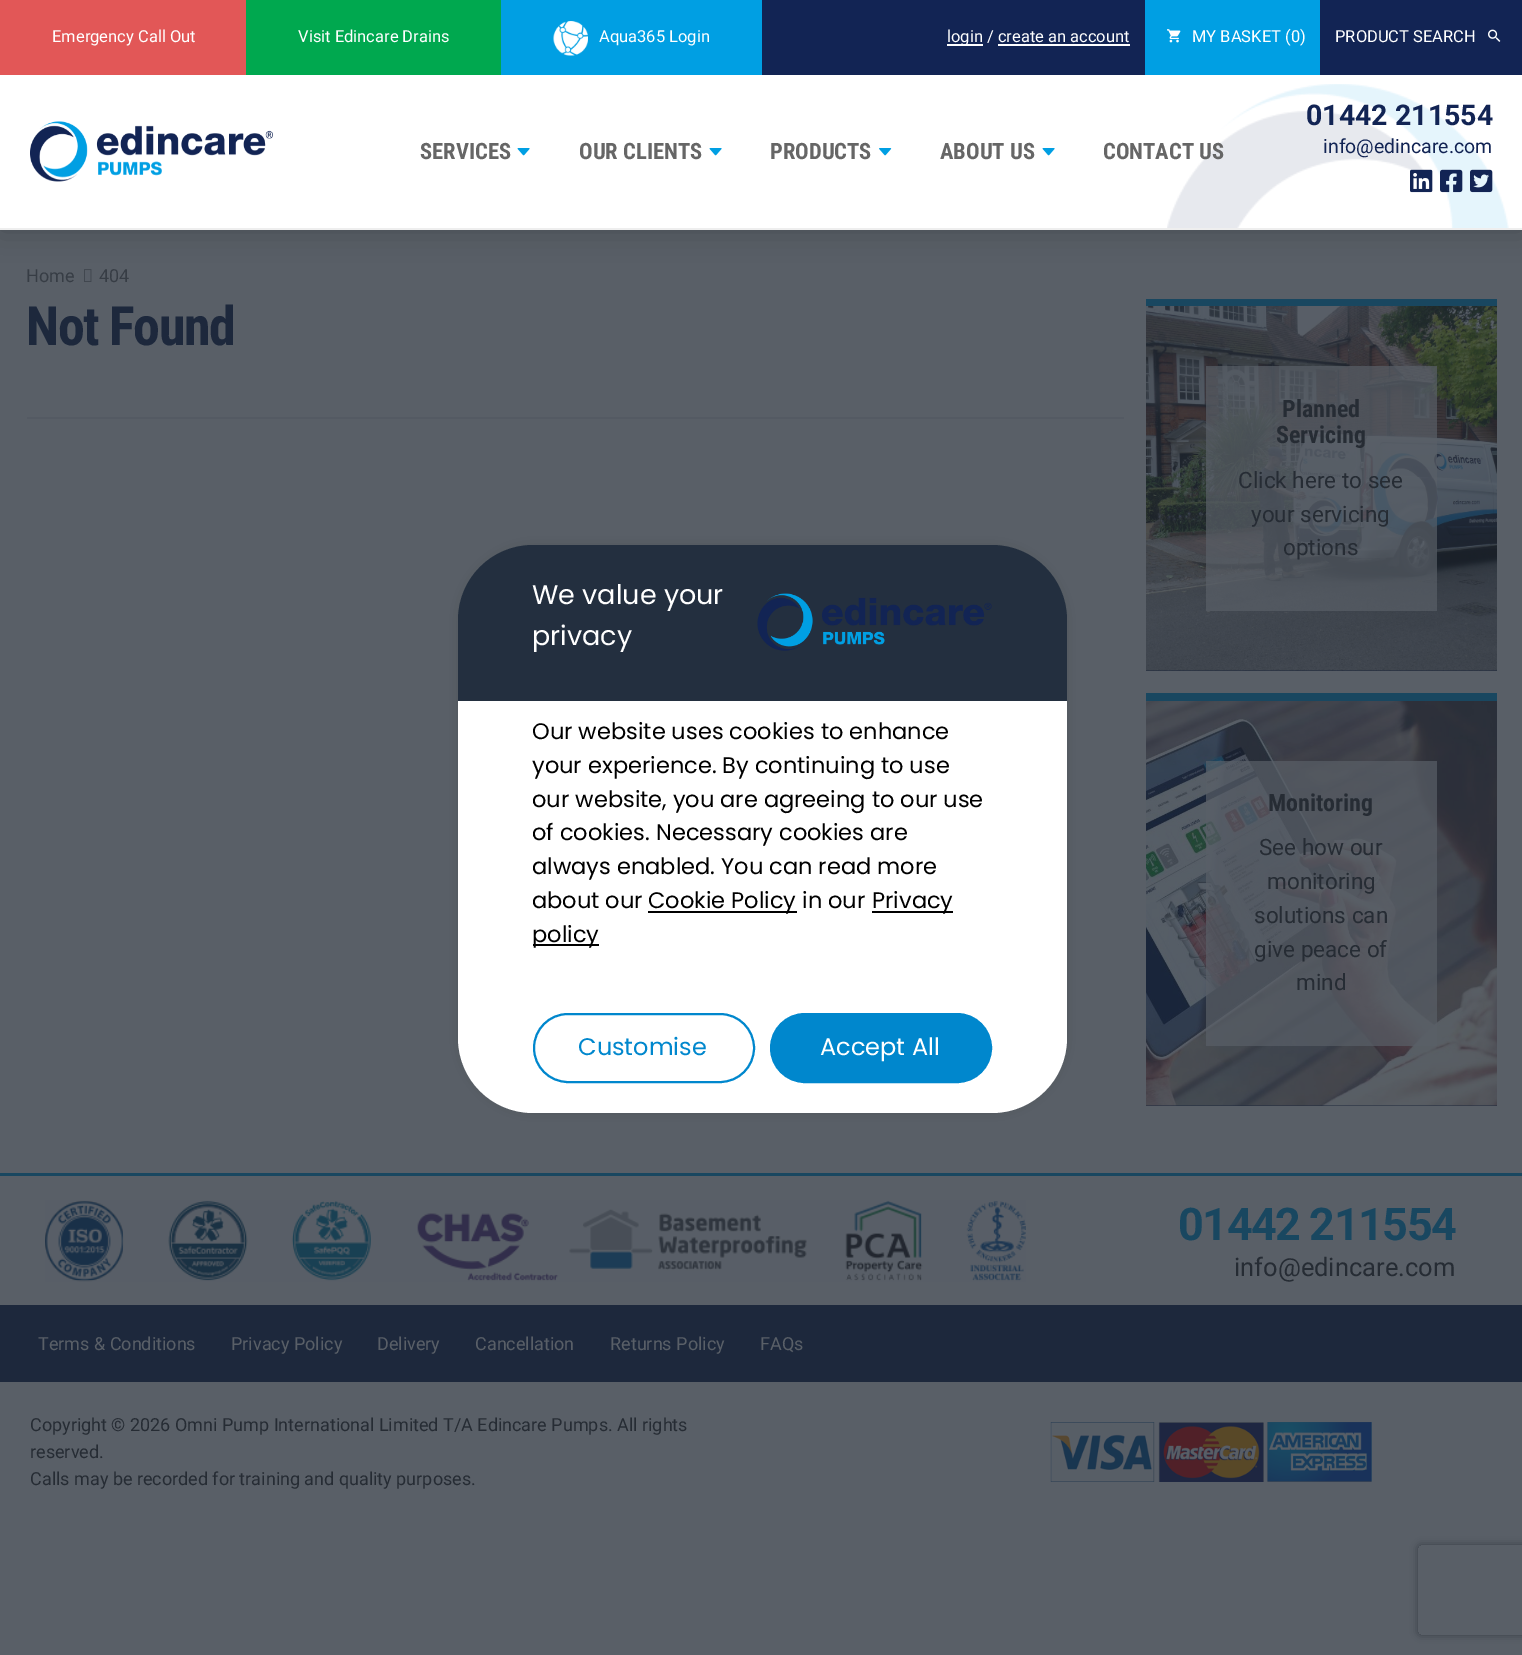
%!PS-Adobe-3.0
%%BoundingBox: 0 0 1522 1655
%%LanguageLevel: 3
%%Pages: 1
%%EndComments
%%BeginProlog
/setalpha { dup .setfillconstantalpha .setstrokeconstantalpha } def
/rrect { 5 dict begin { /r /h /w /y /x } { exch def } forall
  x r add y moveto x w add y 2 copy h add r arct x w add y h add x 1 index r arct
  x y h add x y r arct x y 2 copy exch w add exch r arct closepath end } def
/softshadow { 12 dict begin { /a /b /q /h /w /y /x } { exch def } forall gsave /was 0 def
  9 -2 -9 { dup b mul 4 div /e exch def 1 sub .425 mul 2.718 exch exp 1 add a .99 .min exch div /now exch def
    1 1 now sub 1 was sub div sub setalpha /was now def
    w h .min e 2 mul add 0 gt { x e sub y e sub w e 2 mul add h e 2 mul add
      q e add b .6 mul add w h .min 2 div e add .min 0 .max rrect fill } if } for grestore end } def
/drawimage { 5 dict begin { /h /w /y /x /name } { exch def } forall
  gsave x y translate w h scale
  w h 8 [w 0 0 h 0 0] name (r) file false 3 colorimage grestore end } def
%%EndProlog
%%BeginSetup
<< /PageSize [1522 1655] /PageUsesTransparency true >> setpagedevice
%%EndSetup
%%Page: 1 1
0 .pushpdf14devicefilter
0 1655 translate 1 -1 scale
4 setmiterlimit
0.349 0.373 0.404 setrgbcolor
0 0 1522 1655 rectfill
(images/11.raw) 84 269 8 13 drawimage
0 setgray
0 0 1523 230 0 15 0.2 softshadow
1 setgray
0 75 1522 153 rectfill
0.071 0.141 0.329 setrgbcolor
762 0 760 75 rectfill
0.886 0.341 0.341 setrgbcolor
0 0 246 75 rectfill
0 0.659 0.31 setrgbcolor
246 0 255 75 rectfill
0 0.624 0.89 setrgbcolor
501 0 261 75 rectfill
(images/1.raw) 553 21 35 35 drawimage
1 setgray
947 44 36 2 rectfill
998 44 132 2 rectfill
0 0.624 0.89 setrgbcolor
1145 0 175 75 rectfill
(images/2.raw) 1167 29 14 14 drawimage
(images/3.raw) 1488 29 13 13 drawimage
(images/4.raw) 1167 84 342 144 drawimage
0.933 setgray
0 228 1522 2 rectfill
(images/5.raw) 30 121 243 61 drawimage
(images/6.raw) 517 148 13 8 drawimage
(images/6.raw) 709 148 13 8 drawimage
(images/7.raw) 879 148 13 8 drawimage
(images/6.raw) 1042 148 13 8 drawimage
(images/8.raw) 1410 169 23 24 drawimage
(images/9.raw) 1440 169 23 24 drawimage
(images/10.raw) 1470 169 23 24 drawimage
0.329 0.353 0.388 setrgbcolor
27 417 1097 2 rectfill
0.114 0.157 0.235 setrgbcolor
1146 670 351 1 rectfill
(images/12.raw) 1146 306 351 365 drawimage
0.098 0.278 0.376 setrgbcolor
1146 299 351 7 rectfill
0.7 setalpha
0.349 0.373 0.404 setrgbcolor
1206 366 231 245 rectfill
1 setalpha
0.114 0.157 0.235 setrgbcolor
1146 1105 351 1 rectfill
(images/13.raw) 1146 701 351 405 drawimage
0.098 0.278 0.376 setrgbcolor
1146 693 351 8 rectfill
0.7 setalpha
0.349 0.373 0.404 setrgbcolor
1206 761 231 285 rectfill
1 setalpha
0.098 0.278 0.376 setrgbcolor
0 1173 1522 3 rectfill
(images/14.raw) 45 1200 981 82 drawimage
0.114 0.157 0.235 setrgbcolor
0 1305 1522 77 rectfill
(images/15.raw) 1050 1422 322 60 drawimage
0 setgray
458 545 609 568 75 7.5 0.1 softshadow
0.137 0.184 0.247 setrgbcolor
newpath 533 545 moveto 992 545 lineto 1033.5 545 1067 578.5 1067 620 curveto 1067 701 lineto 458 701 lineto 458 620 lineto 458 578.5 491.5 545 533 545 curveto closepath fill
(images/16.raw) 757 593 235 58 drawimage
1 setgray
458 701 609 282 rectfill
0 setgray
648 911 149 2 rectfill
872 911 81 2 rectfill
533 944 66 2 rectfill
1 setgray
newpath 458 983 moveto 1067 983 lineto 1067 1038 lineto 1067 1079.5 1033.5 1113 992 1113 curveto 533 1113 lineto 491.5 1113 458 1079.5 458 1038 curveto closepath fill
0 0.529 0.804 setrgbcolor
2 setlinewidth
534 1014 220 68 34 rrect stroke
771 1014 220 68 34 rrect gsave fill grestore
stroke
gsave
newpath 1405 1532 moveto 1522 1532 lineto 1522 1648 lineto 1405 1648 lineto closepath 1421 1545 moveto 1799 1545 lineto 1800.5 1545 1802 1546.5 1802 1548 curveto 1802 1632 lineto 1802 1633.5 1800.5 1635 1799 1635 curveto 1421 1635 lineto 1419.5 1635 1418 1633.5 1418 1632 curveto 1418 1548 lineto 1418 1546.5 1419.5 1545 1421 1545 curveto closepath eoclip newpath
0.224 0.247 0.278 setrgbcolor
1418 1545 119 90 3 4 1 softshadow
grestore
/Roboto-Regular [16.5 0 0 -16.5 0 0] selectfont
1 setgray
52 42 moveto (Emergency Call Out) show
298 42 moveto (Visit Edincare Drains) show
599 42 moveto (Aqua365 Login) show
947 42 moveto (login / create an account) show
1192 42 moveto (MY BASKET \(0\)) show
1335 42 moveto (PRODUCT SEARCH) show
/RobotoCondensed-Bold [22.5 0 0 -22.5 0 0] selectfont
0.4 setgray
420 159 moveto (SERVICES) show
579 159 moveto (OUR CLIENTS) show
770 159 moveto (PRODUCTS) show
940 159 moveto (ABOUT US) show
1103 159 moveto (CONTACT US) show
/Roboto-Bold [28.5 0 0 -28.5 0 0] selectfont
0.071 0.141 0.329 setrgbcolor
1306 125 moveto (01442 211554) show
/Roboto-Regular [19.5 0 0 -19.5 0 0] selectfont
1323 153 moveto (info@edincare.com) show
/Roboto-Regular [18 0 0 -18 0 0] selectfont
0.216 0.239 0.271 setrgbcolor
26 282 moveto (Home) show
99 282 moveto (404) show
/RobotoCondensed-Bold [54 0 0 -54 0 0] selectfont
0.114 0.157 0.235 setrgbcolor
26 345 moveto -1.5 0 (Not Found) ashow
/RobotoCondensed-Bold [24 0 0 -24 0 0] selectfont
0.149 0.173 0.204 setrgbcolor
1282 417 moveto (Planned) show
1276 443 moveto (Servicing) show
/Roboto-Regular [22.5 0 0 -22.5 0 0] selectfont
1238 488 moveto (Click here to see) show
1251 522 moveto (your servicing) show
1283 555 moveto (options) show
/RobotoCondensed-Bold [24 0 0 -24 0 0] selectfont
1268 811 moveto (Monitoring) show
/Roboto-Regular [22.5 0 0 -22.5 0 0] selectfont
1259 855 moveto (See how our) show
1267 889 moveto (monitoring) show
1254 923 moveto (solutions can) show
1254 957 moveto (give peace of) show
1296 990 moveto (mind) show
/Roboto-Bold [45 0 0 -45 0 0] selectfont
0.098 0.278 0.376 setrgbcolor
1178 1240 moveto -1.5 0 (01442 211554) ashow
/Roboto-Regular [25.5 0 0 -25.5 0 0] selectfont
0.149 0.173 0.204 setrgbcolor
1234 1276 moveto (info@edincare.com) show
/Roboto-Regular [18 0 0 -18 0 0] selectfont
0.349 0.373 0.404 setrgbcolor
38 1350 moveto (Terms & Conditions) show
231 1350 moveto (Privacy Policy) show
377 1350 moveto (Delivery) show
475 1350 moveto (Cancellation) show
610 1350 moveto (Returns Policy) show
760 1350 moveto (FAQs) show
0.149 0.173 0.204 setrgbcolor
30 1431 moveto (Copyright © 2026 Omni Pump International Limited T/A Edincare Pumps. All rights) show
30 1458 moveto (reserved.) show
30 1485 moveto (Calls may be recorded for training and quality purposes.) show
/Poppins-Regular [27 0 0 -27 0 0] selectfont
1 setgray
532 604 moveto (We value your) show
532 645 moveto (privacy) show
/Poppins-Regular [22.5 0 0 -22.5 0 0] selectfont
0 setgray
532 739 moveto (Our website uses cookies to enhance) show
532 773 moveto (your experience. By continuing to use) show
532 807 moveto (our website, you are agreeing to our use) show
532 840 moveto (of cookies. Necessary cookies are) show
532 874 moveto (always enabled. You can read more) show
532 908 moveto (about our) show
648 908 moveto (Cookie Policy in our) show
872 908 moveto (Privacy) show
532 942 moveto (policy) show
/Poppins-Regular [24 0 0 -24 0 0] selectfont
0 0.529 0.804 setrgbcolor
578 1055 moveto (Customise) show
1 setgray
820 1055 moveto (Accept All) show
.poppdf14devicefilter showpage
%%EOF
